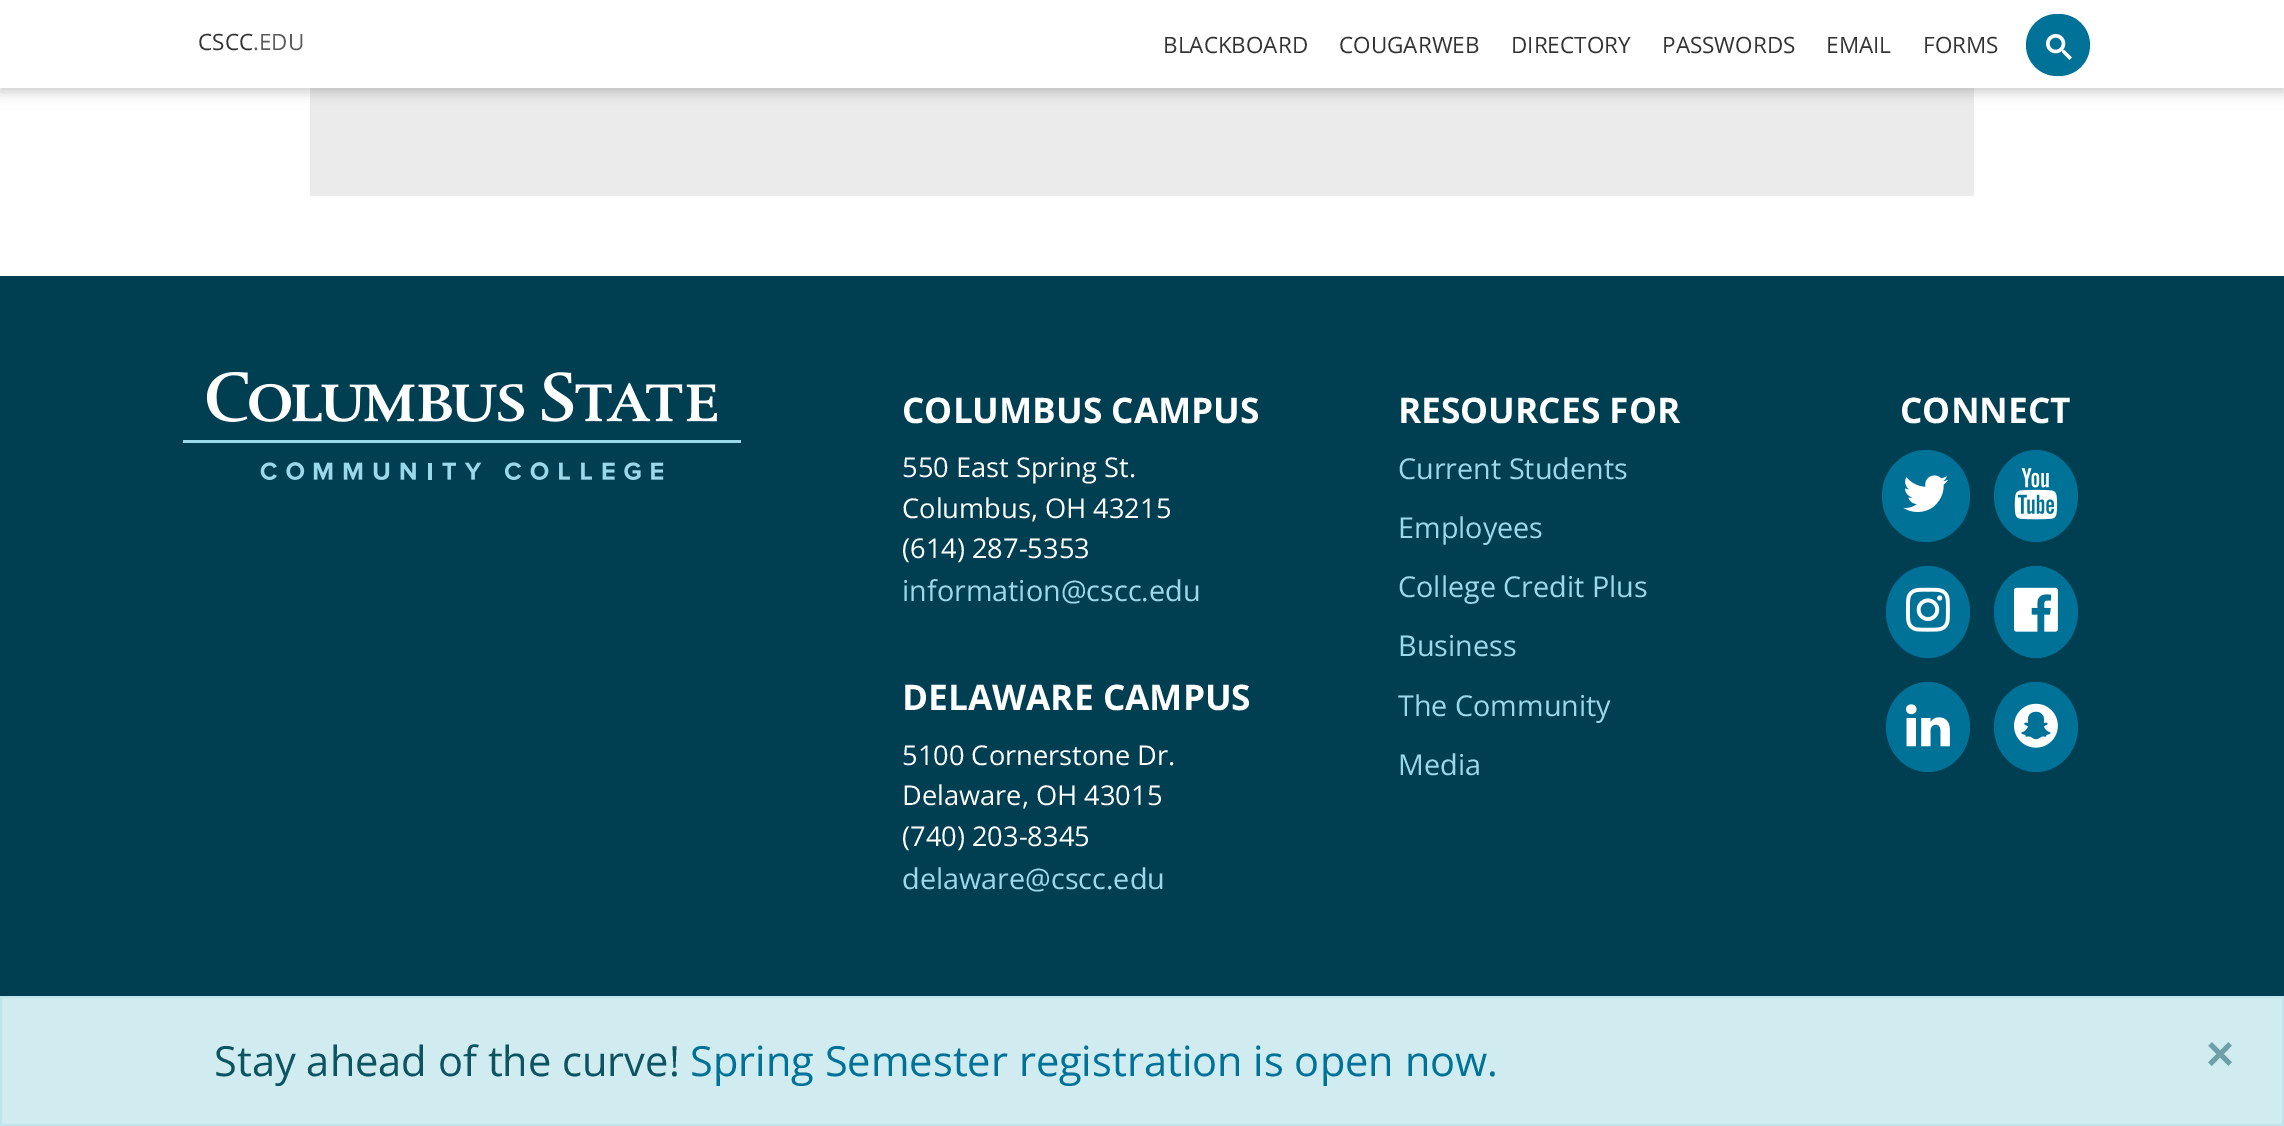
%!PS-Adobe-3.0
%%BoundingBox: 0 0 2284 1126
%%LanguageLevel: 3
%%Pages: 1
%%EndComments
%%BeginProlog
/setalpha { dup .setfillconstantalpha .setstrokeconstantalpha } def
/rrect { 5 dict begin { /r /h /w /y /x } { exch def } forall
  x r add y moveto x w add y 2 copy h add r arct x w add y h add x 1 index r arct
  x y h add x y r arct x y 2 copy exch w add exch r arct closepath end } def
/softshadow { 12 dict begin { /a /b /q /h /w /y /x } { exch def } forall gsave /was 0 def
  9 -2 -9 { dup b mul 4 div /e exch def 1 sub .425 mul 2.718 exch exp 1 add a .99 .min exch div /now exch def
    1 1 now sub 1 was sub div sub setalpha /was now def
    w h .min e 2 mul add 0 gt { x e sub y e sub w e 2 mul add h e 2 mul add
      q e add b .6 mul add w h .min 2 div e add .min 0 .max rrect fill } if } for grestore end } def
/drawimage { 5 dict begin { /h /w /y /x /name } { exch def } forall
  gsave x y translate w h scale
  w h 8 [w 0 0 h 0 0] name (r) file false 3 colorimage grestore end } def
%%EndProlog
%%BeginSetup
<< /PageSize [2284 1126] /PageUsesTransparency true >> setpagedevice
%%EndSetup
%%Page: 1 1
0 .pushpdf14devicefilter
0 1126 translate 1 -1 scale
4 setmiterlimit
1 setgray
0 0 2284 1126 rectfill
0.922 setgray
310 88 1664 108 rectfill
0 setgray
0 -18 2284 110 0 6 0.2 softshadow
1 setgray
0 0 2284 88 rectfill
0 0.447 0.596 setrgbcolor
2026 14 64 62 31 rrect fill
(images/1.raw) 2046 34 26 26 drawimage
0 0.243 0.322 setrgbcolor
0 276 2284 720 rectfill
(images/2.raw) 183 372 558 108 drawimage
0 0.447 0.596 setrgbcolor
newpath 1926 450 moveto 1950.5 450 1970 470.5 1970 496 curveto 1970 521.5 1950.5 542 1926 542 curveto 1901.5 542 1882 521.5 1882 496 curveto 1882 470.5 1901.5 450 1926 450 curveto closepath fill
(images/3.raw) 1903 475 46 37 drawimage
newpath 2036 450 moveto 2059 450 2078 470.5 2078 496 curveto 2078 521.5 2059 542 2036 542 curveto 2013 542 1994 521.5 1994 496 curveto 1994 470.5 2013 450 2036 450 curveto closepath fill
(images/4.raw) 2014 468 44 52 drawimage
newpath 1928 566 moveto 1951 566 1970 586.5 1970 612 curveto 1970 637.5 1951 658 1928 658 curveto 1905 658 1886 637.5 1886 612 curveto 1886 586.5 1905 566 1928 566 curveto closepath fill
(images/5.raw) 1906 587 44 45 drawimage
newpath 2036 566 moveto 2059 566 2078 586.5 2078 612 curveto 2078 637.5 2059 658 2036 658 curveto 2013 658 1994 637.5 1994 612 curveto 1994 586.5 2013 566 2036 566 curveto closepath fill
(images/6.raw) 2014 587 44 45 drawimage
newpath 1928 682 moveto 1951 682 1970 702 1970 727 curveto 1970 752 1951 772 1928 772 curveto 1905 772 1886 752 1886 727 curveto 1886 702 1905 682 1928 682 curveto closepath fill
(images/7.raw) 1906 704 44 43 drawimage
newpath 2036 682 moveto 2059 682 2078 702 2078 727 curveto 2078 752 2059 772 2036 772 curveto 2013 772 1994 752 1994 727 curveto 1994 702 2013 682 2036 682 curveto closepath fill
(images/8.raw) 2014 703 44 45 drawimage
0.82 0.925 0.945 setrgbcolor
newpath 1 997 moveto 2283 997 lineto 2283 1125 lineto 1 1125 lineto closepath gsave fill grestore
0.745 0.898 0.922 setrgbcolor
2 setlinewidth
stroke
/OpenSans-Regular [22.5 0 0 -22.5 0 0] selectfont
0.2 setgray
198 50 moveto (CSCC) show
0.357 setgray
253 50 moveto (.EDU) show
0.2 setgray
1163 53 moveto (BLACKBOARD) show
1339 53 moveto (COUGARWEB) show
1511 53 moveto (DIRECTORY) show
1662 53 moveto (PASSWORDS) show
1826 53 moveto (EMAIL) show
1923 53 moveto (FORMS) show
/OpenSans-Bold [35.25 0 0 -35.25 0 0] selectfont
1 setgray
902 423 moveto (COLUMBUS CAMPUS) show
/OpenSans-Regular [27.25 0 0 -27.25 0 0] selectfont
902 477 moveto (550 East Spring St.) show
902 518 moveto (Columbus, OH 43215) show
902 558 moveto (\(614\) 287-5353) show
/OpenSans-Regular [28.75 0 0 -28.75 0 0] selectfont
0.6 0.855 0.918 setrgbcolor
902 601 moveto (information@cscc.edu) show
/OpenSans-Bold [35.25 0 0 -35.25 0 0] selectfont
1 setgray
902 710 moveto (DELAWARE CAMPUS) show
/OpenSans-Regular [27.25 0 0 -27.25 0 0] selectfont
902 765 moveto (5100 Cornerstone Dr.) show
902 805 moveto (Delaware, OH 43015) show
902 846 moveto (\(740\) 203-8345) show
/OpenSans-Regular [28.75 0 0 -28.75 0 0] selectfont
0.6 0.855 0.918 setrgbcolor
902 889 moveto (delaware@cscc.edu) show
/OpenSans-Bold [35.25 0 0 -35.25 0 0] selectfont
1 setgray
1398 423 moveto (RESOURCES FOR) show
/OpenSans-Regular [28.75 0 0 -28.75 0 0] selectfont
0.6 0.855 0.918 setrgbcolor
1398 479 moveto (Current Students) show
1398 538 moveto (Employees) show
1398 597 moveto (College Credit Plus) show
1398 656 moveto (Business) show
1398 716 moveto (The Community) show
1398 775 moveto (Media) show
/OpenSans-Bold [35.25 0 0 -35.25 0 0] selectfont
1 setgray
1900 423 moveto (CONNECT) show
/OpenSans-Regular [41.6 0 0 -41.6 0 0] selectfont
0.047 0.329 0.376 setrgbcolor
214 1076 moveto (Stay ahead of the curve!) show
0 0.447 0.596 setrgbcolor
690 1076 moveto (Spring Semester registration is open now.) show
/LiberationSans-Bold [48 0 0 -48 0 0] selectfont
0.435 0.627 0.663 setrgbcolor
2206 1070 moveto (×) show
.poppdf14devicefilter showpage
%%EOF
